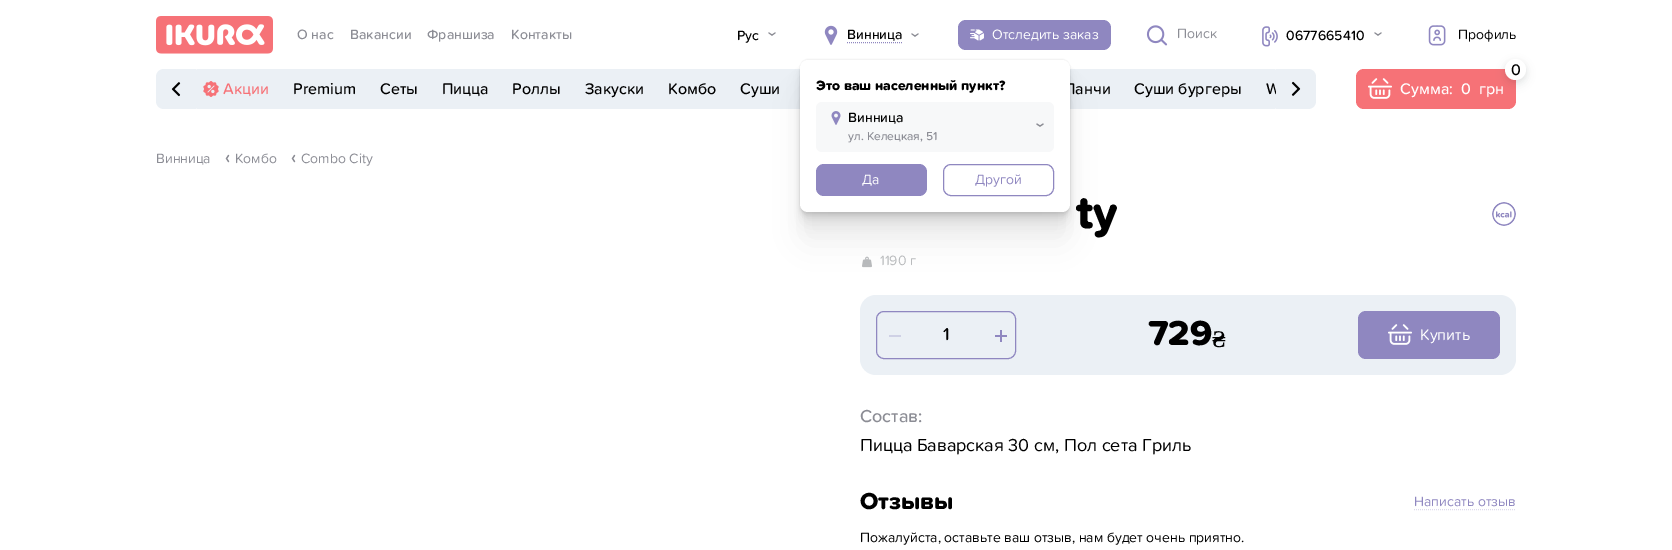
%!PS-Adobe-3.0
%%BoundingBox: 0 0 1672 550
%%LanguageLevel: 3
%%Pages: 1
%%EndComments
%%BeginProlog
/setalpha { dup .setfillconstantalpha .setstrokeconstantalpha } def
/rrect { 5 dict begin { /r /h /w /y /x } { exch def } forall
  x r add y moveto x w add y 2 copy h add r arct x w add y h add x 1 index r arct
  x y h add x y r arct x y 2 copy exch w add exch r arct closepath end } def
/softshadow { 12 dict begin { /a /b /q /h /w /y /x } { exch def } forall gsave /was 0 def
  9 -2 -9 { dup b mul 4 div /e exch def 1 sub .425 mul 2.718 exch exp 1 add a .99 .min exch div /now exch def
    1 1 now sub 1 was sub div sub setalpha /was now def
    w h .min e 2 mul add 0 gt { x e sub y e sub w e 2 mul add h e 2 mul add
      q e add b .6 mul add w h .min 2 div e add .min 0 .max rrect fill } if } for grestore end } def
/drawimage { 5 dict begin { /h /w /y /x /name } { exch def } forall
  gsave x y translate w h scale
  w h 8 [w 0 0 h 0 0] name (r) file false 3 colorimage grestore end } def
%%EndProlog
%%BeginSetup
<< /PageSize [1672 550] /PageUsesTransparency true >> setpagedevice
%%EndSetup
%%Page: 1 1
0 .pushpdf14devicefilter
0 550 translate 1 -1 scale
4 setmiterlimit
1 setgray
0 0 1672 550 rectfill
(images/1.raw) 156 16 117 38 drawimage
(images/2.raw) 768 32 8 4 drawimage
(images/3.raw) 824 25 14 20 drawimage
0.561 0.529 0.753 setrgbcolor
[1 1] 0 setdash
newpath 847 42.5 moveto 902 42.5 lineto stroke
(images/2.raw) 911 33 8 4 drawimage
0.922 0.941 0.961 setrgbcolor
191 69 1090 40 8 rrect fill
0 setgray
800 59 270 152 8 0.5 0.05 softshadow
800 62 270 152 8 1 0.05 softshadow
800 64 270 152 8 2 0.05 softshadow
800 68 270 152 8 4 0.05 softshadow
800 76 270 152 8 8 0.05 softshadow
0.561 0.529 0.753 setrgbcolor
958 20 153 30 8 rrect fill
(images/16.raw) 862 256 10 12 drawimage
0 setgray
800 92 270 152 8 16 0.05 softshadow
(images/6.raw) 970 29 14 12 drawimage
(images/7.raw) 1146 25 22 21 drawimage
(images/8.raw) 1262 26 16 21 drawimage
(images/2.raw) 1374 32 8 4 drawimage
(images/9.raw) 1428 25 18 21 drawimage
0.922 0.941 0.961 setrgbcolor
newpath 164 69 moveto 196 69 lineto 196 109 lineto 164 109 lineto 159.5 109 156 105.5 156 101 curveto 156 77 lineto 156 72.5 159.5 69 164 69 curveto closepath fill
(images/10.raw) 171 82 10 15 drawimage
(images/11.raw) 203 81 16 16 drawimage
0.965 0.447 0.467 setrgbcolor
1356 69 160 40 8 rrect fill
0.149 0.153 0.157 setrgbcolor
1505 63 21 21 10.5 4.5 0.08 softshadow
1505 61 21 21 10.5 2.5 0.06 softshadow
1 setgray
newpath 1515.5 69.5 10.5 0 360 arc closepath fill
(images/13.raw) 1368 78 24 21 drawimage
(images/14.raw) 225 154 5 9 drawimage
(images/14.raw) 291 154 5 9 drawimage
(images/15.raw) 1492 202 24 24 drawimage
0.922 0.941 0.961 setrgbcolor
860 295 656 80 16 rrect fill
0.561 0.529 0.753 setrgbcolor
[] 0 setdash
876.5 311.5 139 47 7.5 rrect stroke
0.812 0.82 0.898 setrgbcolor
889 335 12 2 rectfill
0.561 0.529 0.753 setrgbcolor
1000 330 2 12 rectfill
995 335 12 2 rectfill
1358 311 142 48 8 rrect fill
(images/17.raw) 1388 324 24 21 drawimage
0.867 0.859 0.925 setrgbcolor
[1 1] 0 setdash
newpath 1414 509.5 moveto 1516 509.5 lineto stroke
/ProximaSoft-Medium [14 0 0 -14 0 0] selectfont
0.549 0.553 0.584 setrgbcolor
297 39 moveto (О нас) show
350 39 moveto (Вакансии) show
427 39 moveto (Франшиза) show
511 39 moveto (Контакты) show
0 setgray
737 40 moveto (Рус) show
847 39 moveto (Винница) show
/ProximaSoft-Regular [14 0 0 -14 0 0] selectfont
1 setgray
992 39 moveto (Отследить заказ) show
0.549 0.553 0.584 setrgbcolor
1177 38 moveto (Поиск) show
/ProximaSoft-Medium [14 0 0 -14 0 0] selectfont
0 setgray
1286 40 moveto (0677665410) show
/ProximaSoft-Regular [14 0 0 -14 0 0] selectfont
1458 39 moveto (Профиль) show
/ProximaSoft-Medium [16 0 0 -16 0 0] selectfont
0.965 0.447 0.467 setrgbcolor
223 94 moveto (Акции) show
0 setgray
293 94 moveto (Premium) show
380 94 moveto (Сеты) show
442 94 moveto (Пицца) show
512 94 moveto (Роллы) show
585 94 moveto (Закуски) show
668 94 moveto (Комбо) show
740 94 moveto (Суши) show
1064 94 moveto (Ланчи) show
1 setgray
800 60 270 152 8 rrect fill
0.969 0.973 0.976 setrgbcolor
816 102 238 50 6 rrect fill
(images/5.raw) 1036 123 8 4 drawimage
(images/4.raw) 831 111 10 14 drawimage
/ProximaSoft-Medium [12 0 0 -12 0 0] selectfont
0.549 0.553 0.584 setrgbcolor
848 140 moveto (ул. Келецкая, 51) show
/ProximaSoft-Medium [14 0 0 -14 0 0] selectfont
0 setgray
848 122 moveto (Винница) show
0.561 0.529 0.753 setrgbcolor
[] 0 setdash
943.5 164.5 110 31 7.5 rrect stroke
/ProximaSoft-Regular [14 0 0 -14 0 0] selectfont
975 184 moveto (Другой) show
816 164 111 32 8 rrect fill
1 setgray
862 184 moveto (Да) show
/ProximaSoft-ExtraBold [14 0 0 -14 0 0] selectfont
0 setgray
816 90 moveto (Это ваш населенный пункт?) show
/ProximaSoft-Medium [16 0 0 -16 0 0] selectfont
1134 94 moveto (Суши бургеры) show
1266 94 moveto (W) show
0.922 0.941 0.961 setrgbcolor
newpath 1276 69 moveto 1308 69 lineto 1312.5 69 1316 72.5 1316 77 curveto 1316 101 lineto 1316 105.5 1312.5 109 1308 109 curveto 1276 109 lineto closepath fill
(images/12.raw) 1291 81 10 15 drawimage
0 setgray
1511 75 moveto (0) show
1 setgray
1400 94 moveto (Сумма:) show
1461 94 moveto (0) show
1479 94 moveto (грн) show
/ProximaSoft-Regular [14 0 0 -14 0 0] selectfont
0.549 0.553 0.584 setrgbcolor
156 163 moveto (Винница) show
235 163 moveto (Комбо) show
301 163 moveto (Combo City) show
/ProximaSoft-ExtraBold [48 0 0 -48 0 0] selectfont
0 setgray
1076 228 moveto (ty) show
/ProximaSoft-Regular [14 0 0 -14 0 0] selectfont
0.725 0.733 0.741 setrgbcolor
880 265 moveto (1190 г) show
/ProximaSoft-Medium [18 0 0 -18 0 0] selectfont
0 setgray
943 340 moveto (1) show
/ProximaSoft-ExtraBold [36 0 0 -36 0 0] selectfont
1148 345 moveto (729) show
/LiberationSerif-Bold [24 0 0 -24 0 0] selectfont
1212 347 moveto (₴) show
/ProximaSoft-Regular [16 0 0 -16 0 0] selectfont
1 setgray
1420 340 moveto (Купить) show
/ProximaSoft-Medium [18 0 0 -18 0 0] selectfont
0.549 0.553 0.584 setrgbcolor
860 422 moveto (Состав:) show
/ProximaSoft-Regular [18 0 0 -18 0 0] selectfont
0 setgray
860 451 moveto (Пицца Баварская 30 см, Пол сета Гриль) show
/ProximaSoft-ExtraBold [24 0 0 -24 0 0] selectfont
860 509 moveto (Отзывы) show
/ProximaSoft-Regular [14 0 0 -14 0 0] selectfont
0.561 0.529 0.753 setrgbcolor
1414 506 moveto (Написать отзыв) show
0 setgray
860 542 moveto (Пожалуйста, оставьте ваш отзыв, нам будет очень приятно.) show
.poppdf14devicefilter showpage
%%EOF
